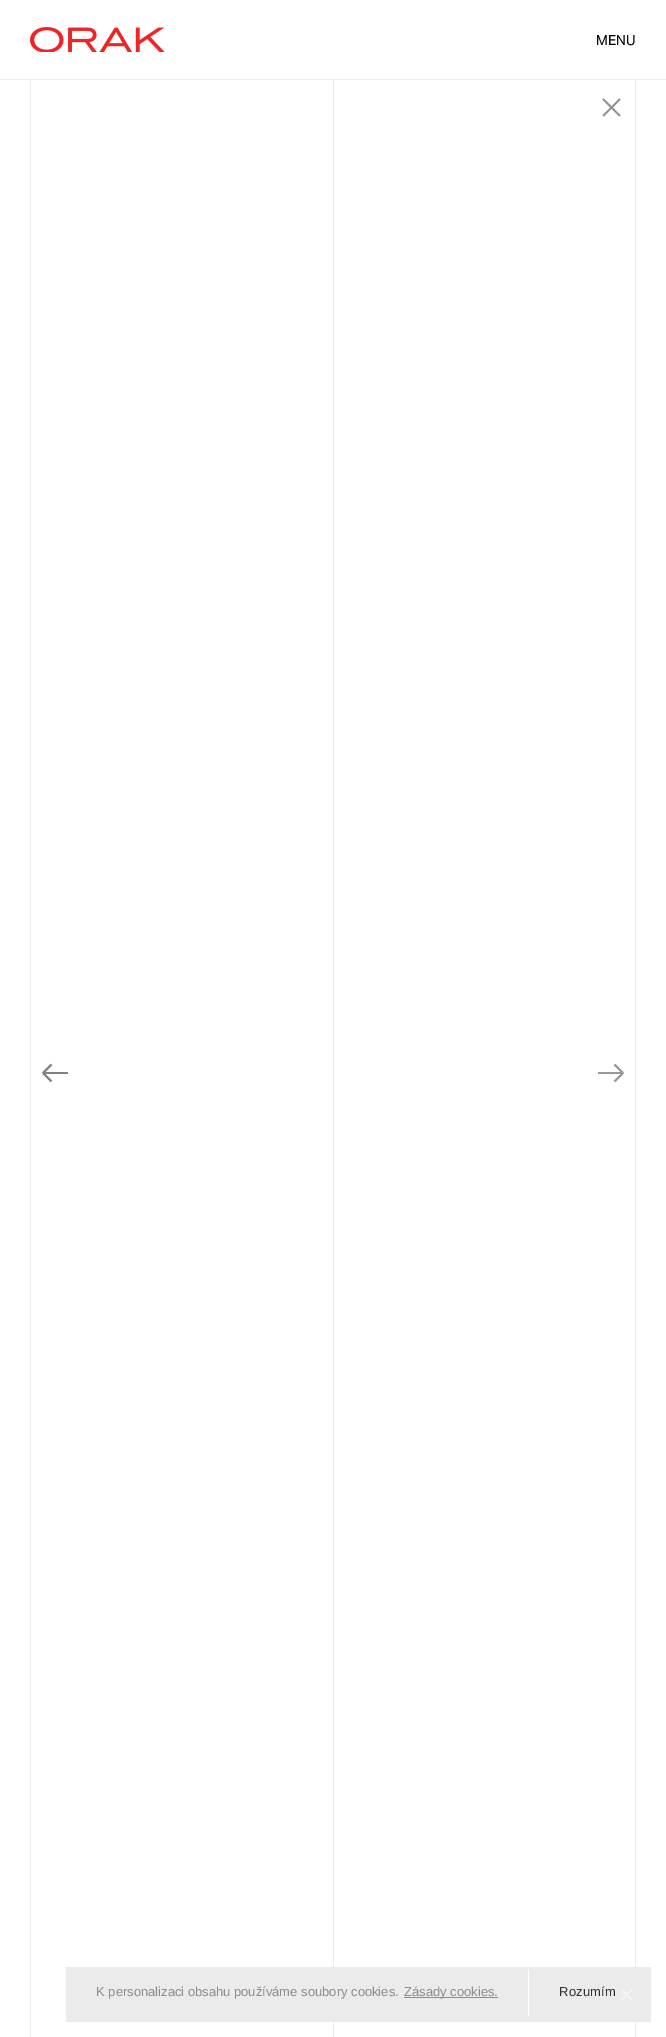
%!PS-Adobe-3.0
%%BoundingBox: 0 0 666 2037
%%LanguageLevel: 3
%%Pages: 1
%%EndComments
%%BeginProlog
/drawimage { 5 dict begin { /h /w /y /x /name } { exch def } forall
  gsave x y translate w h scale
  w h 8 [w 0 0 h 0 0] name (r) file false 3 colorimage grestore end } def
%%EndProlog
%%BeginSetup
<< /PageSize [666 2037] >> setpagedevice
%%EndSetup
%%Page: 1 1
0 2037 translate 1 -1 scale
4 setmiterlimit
1 setgray
0 0 666 2037 rectfill
0.922 setgray
0 79 666 1 rectfill
(images/1.raw) 30 27 135 25 drawimage
635 80 1 1957 rectfill
30 80 1 1957 rectfill
333 80 1 1957 rectfill
(images/2.raw) 602 98 19 19 drawimage
0.502 setgray
43 1072 25 2 rectfill
2 setlinewidth
2 setlinejoin
newpath 51.5 1081.5 moveto 43 1073 lineto 51.5 1064.5 lineto stroke
0.596 setgray
598 1072 25 2 rectfill
newpath 614.5 1064.5 moveto 623 1073 lineto 614.5 1081.5 lineto stroke
0.922 setgray
66 1967 585 55 rectfill
0.549 setgray
404 1997 94 1 rectfill
1 setgray
528 1969 1 47 rectfill
0.961 setgray
newpath 631.5 1989 moveto 633 1990.5 lineto 622.5 2001 lineto 621 1999.5 lineto closepath fill
newpath 621 1990.5 moveto 622.5 1989 lineto 633 1999.5 lineto 631.5 2001 lineto closepath fill
/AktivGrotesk-Regular [14 0 0 -14 0 0] selectfont
0 setgray
596 45 moveto (MENU) show
/LiberationSans-Regular [13 0 0 -13 0 0] selectfont
0.549 setgray
96 1996 moveto (K personalizaci obsahu používáme soubory cookies.) show
404 1996 moveto (Zásady cookies.) show
0.188 setgray
559 1996 moveto 0.25 0 (Rozumím) ashow
showpage
%%EOF
